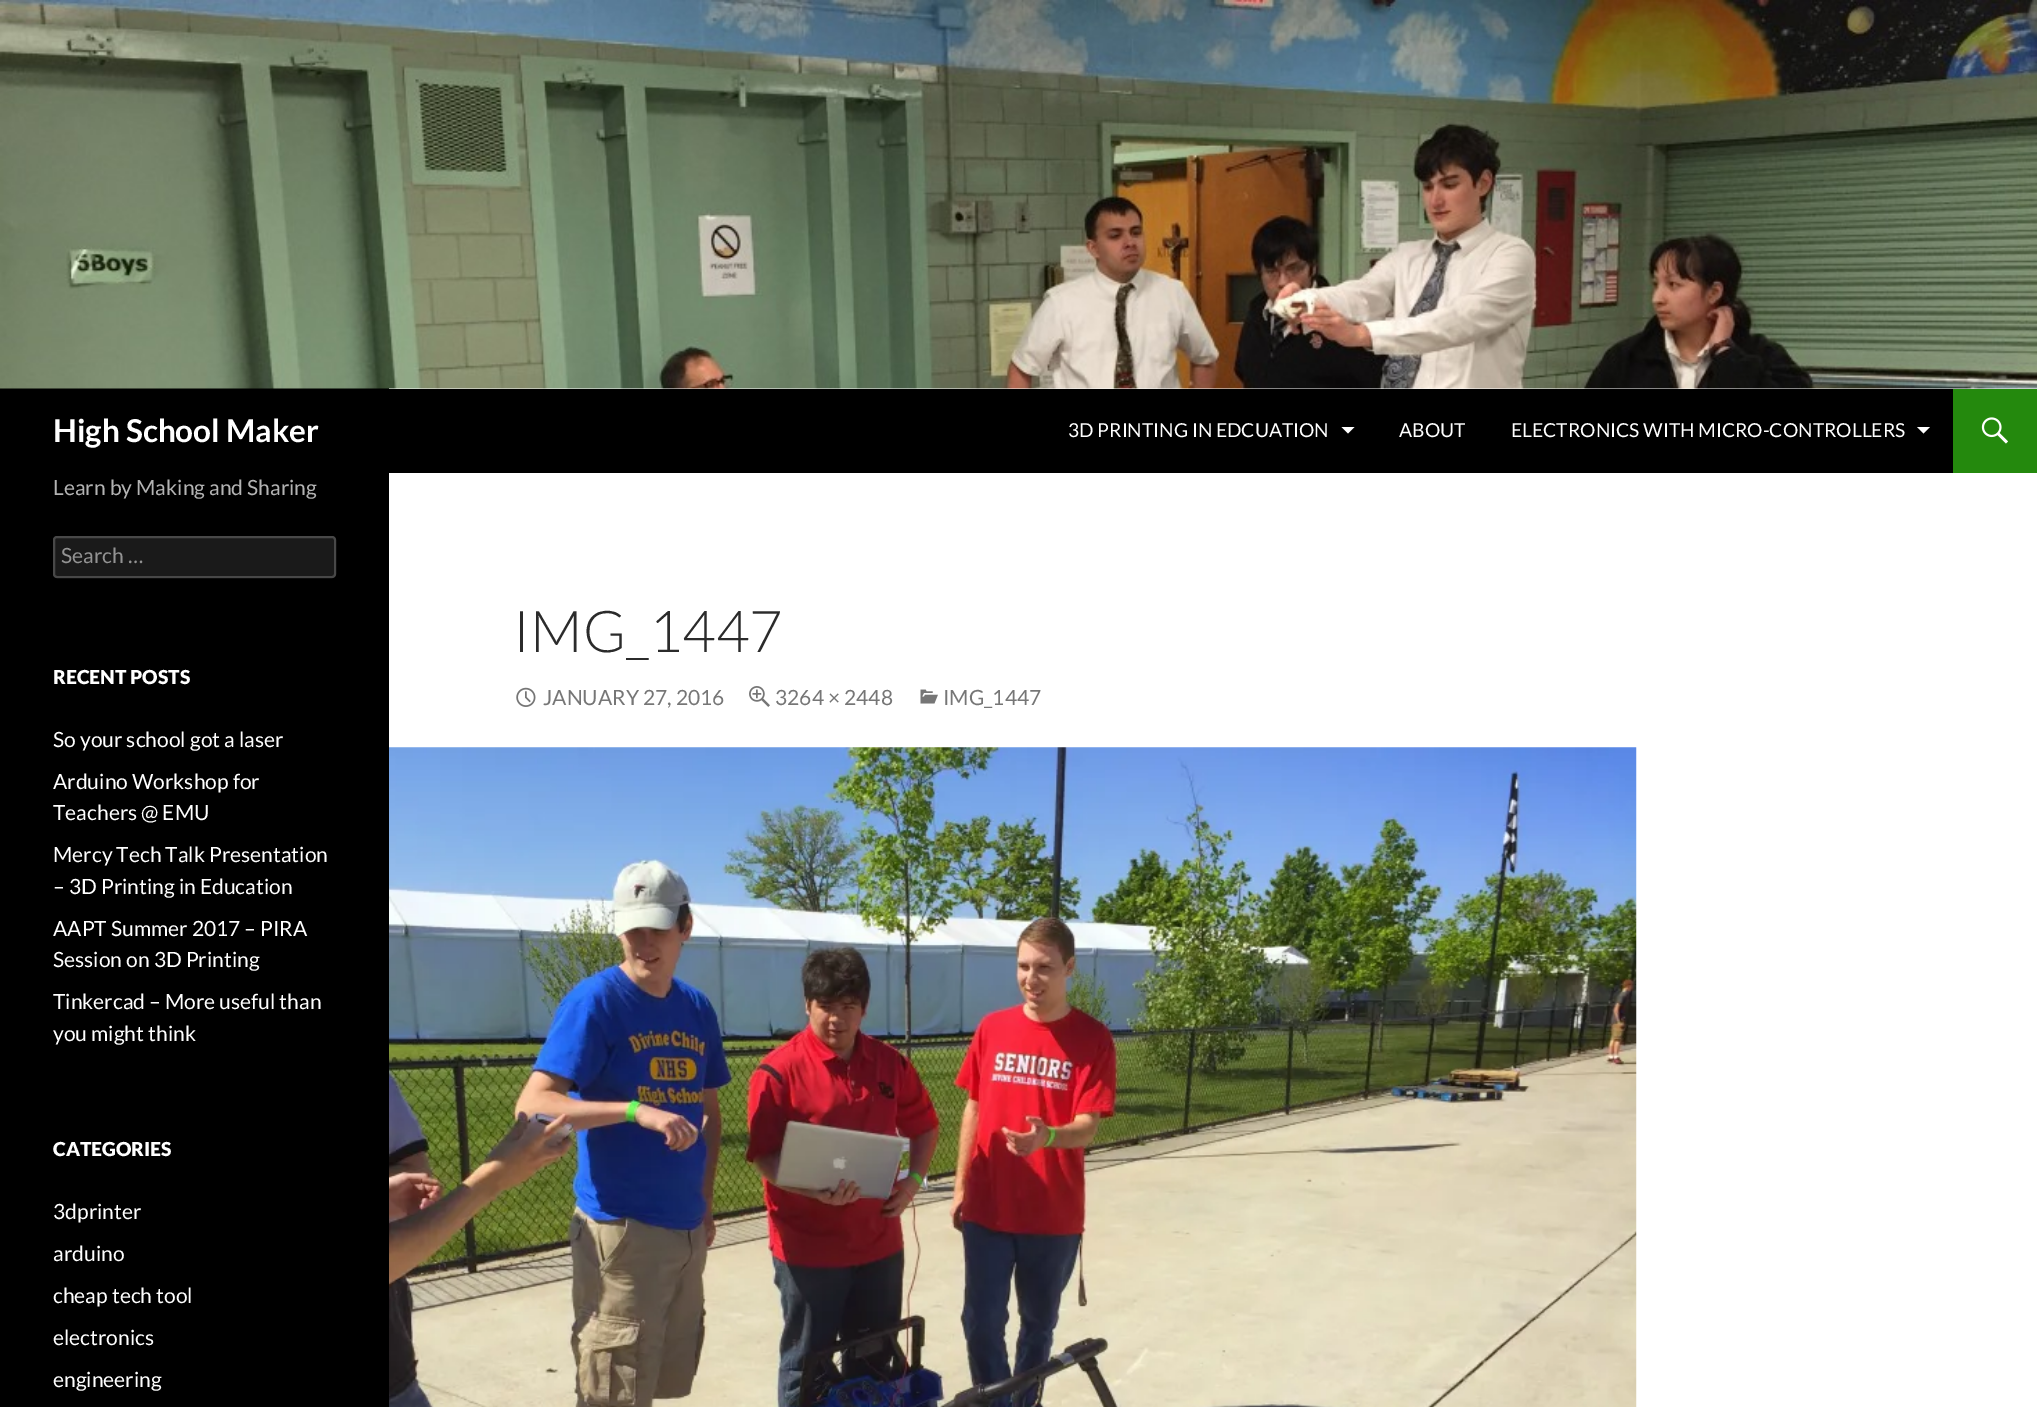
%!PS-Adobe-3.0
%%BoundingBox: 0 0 2037 1407
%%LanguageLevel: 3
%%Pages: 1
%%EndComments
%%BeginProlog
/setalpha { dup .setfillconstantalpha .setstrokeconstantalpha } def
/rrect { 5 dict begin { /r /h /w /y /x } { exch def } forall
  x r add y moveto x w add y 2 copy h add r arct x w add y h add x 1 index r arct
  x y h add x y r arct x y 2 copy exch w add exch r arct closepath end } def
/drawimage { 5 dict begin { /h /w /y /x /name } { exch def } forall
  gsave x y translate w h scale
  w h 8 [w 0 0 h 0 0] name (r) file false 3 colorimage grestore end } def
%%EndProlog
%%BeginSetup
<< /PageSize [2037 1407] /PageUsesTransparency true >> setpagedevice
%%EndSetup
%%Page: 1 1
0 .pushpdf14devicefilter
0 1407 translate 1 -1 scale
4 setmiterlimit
1 setgray
0 0 2037 1407 rectfill
0 setgray
0 388 389 1019 rectfill
(images/1.raw) 0 0 2037 389 drawimage
389 389 1564 84 rectfill
1 setgray
newpath 1341.5 427 moveto 1354.5 427 lineto 1348 433.5 lineto closepath fill
newpath 1917 427 moveto 1930 427 lineto 1923.5 433.5 lineto closepath fill
0.141 0.537 0.051 setrgbcolor
1953 389 84 84 rectfill
(images/2.raw) 1981 417 27 27 drawimage
0.102 setgray
53 536 283 42 4 rrect fill
0.2 setalpha
1 setgray
2 setlinewidth
54 537 281 40 3 rrect stroke
1 setalpha
(images/3.raw) 516 687 20 20 drawimage
(images/4.raw) 749 686 21 21 drawimage
(images/5.raw) 920 689 18 15 drawimage
(images/6.raw) 389 747 1248 660 drawimage
/Lato-Bold [31.5 0 0 -31.5 0 0] selectfont
53 442 moveto (High School Maker) show
/Lato-Regular [19.25 0 0 -19.25 0 0] selectfont
1068 437 moveto (3D PRINTING IN EDCUATION) show
1399 437 moveto (ABOUT) show
1511 437 moveto (ELECTRONICS WITH MICRO-CONTROLLERS) show
/Lato-Regular [21 0 0 -21 0 0] selectfont
0.702 setgray
53 495 moveto (Learn by Making and Sharing) show
0.576 setgray
61 563 moveto (Search …) show
/Lato-Black [19.25 0 0 -19.25 0 0] selectfont
1 setgray
53 684 moveto (RECENT POSTS) show
/Lato-Regular [21 0 0 -21 0 0] selectfont
53 747 moveto (So your school got a laser) show
53 789 moveto (Arduino Workshop for) show
53 820 moveto (Teachers @ EMU) show
53 862 moveto (Mercy Tech Talk Presentation) show
53 894 moveto (– 3D Printing in Education) show
53 936 moveto (AAPT Summer 2017 – PIRA) show
53 967 moveto (Session on 3D Printing) show
53 1009 moveto (Tinkercad – More useful than) show
53 1041 moveto (you might think) show
/Lato-Black [19.25 0 0 -19.25 0 0] selectfont
53 1156 moveto (CATEGORIES) show
/Lato-Regular [21 0 0 -21 0 0] selectfont
53 1219 moveto (3dprinter) show
53 1261 moveto (arduino) show
53 1303 moveto (cheap tech tool) show
53 1345 moveto (electronics) show
53 1387 moveto (engineering) show
/Lato-Light [57.75 0 0 -57.75 0 0] selectfont
0.169 setgray
513 652 moveto (IMG_1447) show
/Lato-Regular [21 0 0 -21 0 0] selectfont
0.463 setgray
543 705 moveto (JANUARY 27, 2016) show
775 705 moveto (3264 × 2448) show
943 705 moveto (IMG_1447) show
.poppdf14devicefilter showpage
%%EOF
